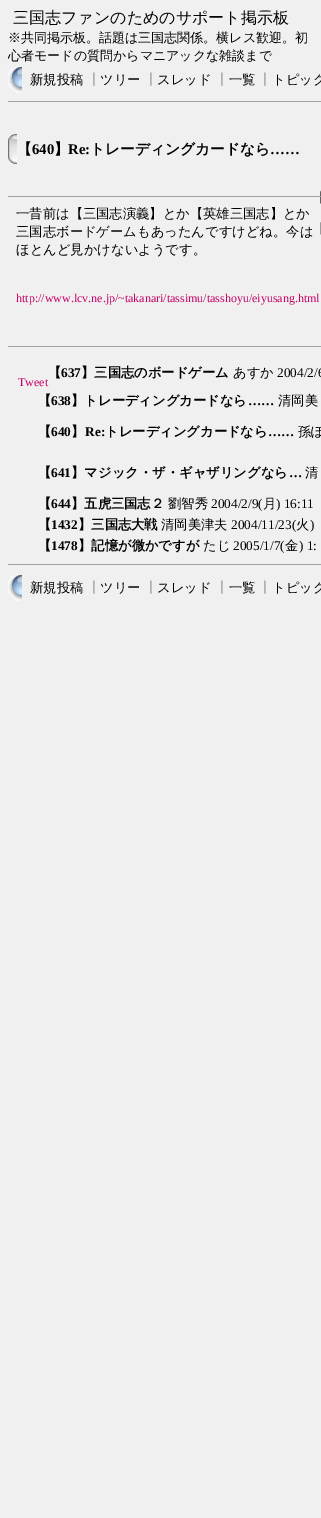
%!PS-Adobe-3.0
%%BoundingBox: 0 0 321 1518
%%LanguageLevel: 3
%%Pages: 1
%%EndComments
%%BeginProlog
/drawimage { 5 dict begin { /h /w /y /x /name } { exch def } forall
  gsave x y translate w h scale
  w h 8 [w 0 0 h 0 0] name (r) file false 3 colorimage grestore end } def
%%EndProlog
%%BeginSetup
<< /PageSize [321 1518] >> setpagedevice
%%EndSetup
%%Page: 1 1
0 1518 translate 1 -1 scale
4 setmiterlimit
0.941 setgray
0 0 321 1518 rectfill
(images/1.raw) 8 66 14 27 drawimage
0.624 setgray
8 101 313 1 rectfill
(images/2.raw) 8 134 9 30 drawimage
(images/3.raw) 320 190 1 14 drawimage
(images/4.raw) 320 222 1 13 drawimage
8 196 313 1 rectfill
8 346 313 1 rectfill
8 564 313 1 rectfill
(images/1.raw) 8 574 14 27 drawimage
/WenQuanYiZenHei-Medium [16 0 0 -16 0 0] selectfont
0 setgray
13 23 moveto (三国志ファンのためのサポート掲示板) show
/WenQuanYiZenHei-Medium [13 0 0 -13 0 0] selectfont
8 42 moveto (※共同掲示板。話題は三国志関係。横レス歓迎。初) show
8 60 moveto (心者モードの質問からマニアックな雑談まで) show
/WenQuanYiZenHei-Medium [13.3 0 0 -13.3 0 0] selectfont
30 84 moveto (新規投稿) show
0.6 setgray
87 84 moveto (┃) show
0 setgray
100 84 moveto (ツリー) show
0.6 setgray
144 84 moveto (┃) show
0 setgray
157 84 moveto (スレッド) show
0.6 setgray
215 84 moveto (┃) show
0 setgray
229 84 moveto (一覧) show
0.6 setgray
258 84 moveto (┃) show
0 setgray
272 84 moveto (トピック) show
/WenQuanYiZenHei-Bold [14.75 0 0 -14.75 0 0] selectfont
17 154 moveto (【) show
/LiberationSerif-Bold [14.75 0 0 -14.75 0 0] selectfont
32 154 moveto (640) show
/WenQuanYiZenHei-Bold [14.75 0 0 -14.75 0 0] selectfont
54 154 moveto (】) show
/LiberationSerif-Bold [14.75 0 0 -14.75 0 0] selectfont
68 154 moveto (Re:) show
/WenQuanYiZenHei-Bold [14.75 0 0 -14.75 0 0] selectfont
90 154 moveto (トレーディングカードなら) show
/LiberationSerif-Bold [14.75 0 0 -14.75 0 0] selectfont
270 154 moveto (……) show
/WenQuanYiZenHei-Medium [13.3 0 0 -13.3 0 0] selectfont
16 218 moveto (一昔前は【三国志演義】とか【英雄三国志】とか) show
16 236 moveto (三国志ボードゲームもあったんですけどね。今は) show
16 254 moveto (ほとんど見かけないようです。) show
/LiberationSerif-Regular [12 0 0 -12 0 0] selectfont
0.773 0 0.404 setrgbcolor
16 302 moveto (http://www.lcv.ne.jp/~takanari/tassimu/tasshoyu/eiyusang.html) show
/WenQuanYiZenHei-Bold [13.3 0 0 -13.3 0 0] selectfont
0 setgray
48 377 moveto (【) show
/LiberationSerif-Bold [13.3 0 0 -13.3 0 0] selectfont
61 377 moveto (637) show
/WenQuanYiZenHei-Bold [13.3 0 0 -13.3 0 0] selectfont
81 377 moveto (】三国志のボードゲーム) show
/WenQuanYiZenHei-Medium [13.3 0 0 -13.3 0 0] selectfont
233 377 moveto (あすか) show
/LiberationSerif-Regular [13.3 0 0 -13.3 0 0] selectfont
277 377 moveto (2004/2/6) show
/LiberationSerif-Regular [12 0 0 -12 0 0] selectfont
0.773 0 0.404 setrgbcolor
18 386 moveto (Tweet) show
/WenQuanYiZenHei-Bold [13.3 0 0 -13.3 0 0] selectfont
0 setgray
38 405 moveto (【) show
/LiberationSerif-Bold [13.3 0 0 -13.3 0 0] selectfont
51 405 moveto (638) show
/WenQuanYiZenHei-Bold [13.3 0 0 -13.3 0 0] selectfont
71 405 moveto (】トレーディングカードなら) show
/LiberationSerif-Bold [13.3 0 0 -13.3 0 0] selectfont
248 405 moveto (……) show
/WenQuanYiZenHei-Medium [13.3 0 0 -13.3 0 0] selectfont
278 405 moveto (清岡美) show
/WenQuanYiZenHei-Bold [13.3 0 0 -13.3 0 0] selectfont
38 436 moveto (【) show
/LiberationSerif-Bold [13.3 0 0 -13.3 0 0] selectfont
51 436 moveto (640) show
/WenQuanYiZenHei-Bold [13.3 0 0 -13.3 0 0] selectfont
71 436 moveto (】) show
/LiberationSerif-Bold [13.3 0 0 -13.3 0 0] selectfont
85 436 moveto (Re:) show
/WenQuanYiZenHei-Bold [13.3 0 0 -13.3 0 0] selectfont
105 436 moveto (トレーディングカードなら) show
/LiberationSerif-Bold [13.3 0 0 -13.3 0 0] selectfont
268 436 moveto (……) show
/WenQuanYiZenHei-Medium [13.3 0 0 -13.3 0 0] selectfont
298 436 moveto (孫ぽ) show
/WenQuanYiZenHei-Bold [13.3 0 0 -13.3 0 0] selectfont
38 477 moveto (【) show
/LiberationSerif-Bold [13.3 0 0 -13.3 0 0] selectfont
51 477 moveto (641) show
/WenQuanYiZenHei-Bold [13.3 0 0 -13.3 0 0] selectfont
71 477 moveto (】マジック・ザ・ギャザリングなら) show
/LiberationSerif-Bold [13.3 0 0 -13.3 0 0] selectfont
289 477 moveto (…) show
/WenQuanYiZenHei-Medium [13.3 0 0 -13.3 0 0] selectfont
305 477 moveto (清) show
/WenQuanYiZenHei-Bold [13.3 0 0 -13.3 0 0] selectfont
38 508 moveto (【) show
/LiberationSerif-Bold [13.3 0 0 -13.3 0 0] selectfont
51 508 moveto (644) show
/WenQuanYiZenHei-Bold [13.3 0 0 -13.3 0 0] selectfont
71 508 moveto (】五虎三国志２) show
/WenQuanYiZenHei-Medium [13.3 0 0 -13.3 0 0] selectfont
168 508 moveto (劉智秀) show
/LiberationSerif-Regular [13.3 0 0 -13.3 0 0] selectfont
211 508 moveto (2004/2/9\() show
/WenQuanYiZenHei-Medium [13.3 0 0 -13.3 0 0] selectfont
263 508 moveto (月) show
/LiberationSerif-Regular [13.3 0 0 -13.3 0 0] selectfont
276 508 moveto (\) 16:11) show
/WenQuanYiZenHei-Bold [13.3 0 0 -13.3 0 0] selectfont
38 529 moveto (【) show
/LiberationSerif-Bold [13.3 0 0 -13.3 0 0] selectfont
51 529 moveto (1432) show
/WenQuanYiZenHei-Bold [13.3 0 0 -13.3 0 0] selectfont
78 529 moveto (】三国志大戦) show
/WenQuanYiZenHei-Medium [13.3 0 0 -13.3 0 0] selectfont
161 529 moveto (清岡美津夫) show
/LiberationSerif-Regular [13.3 0 0 -13.3 0 0] selectfont
231 529 moveto (2004/11/23\() show
/WenQuanYiZenHei-Medium [13.3 0 0 -13.3 0 0] selectfont
296 529 moveto (火) show
/LiberationSerif-Regular [13.3 0 0 -13.3 0 0] selectfont
310 529 moveto (\)) show
/WenQuanYiZenHei-Bold [13.3 0 0 -13.3 0 0] selectfont
38 550 moveto (【) show
/LiberationSerif-Bold [13.3 0 0 -13.3 0 0] selectfont
51 550 moveto (1478) show
/WenQuanYiZenHei-Bold [13.3 0 0 -13.3 0 0] selectfont
78 550 moveto (】記憶が微かですが) show
/WenQuanYiZenHei-Medium [13.3 0 0 -13.3 0 0] selectfont
203 550 moveto (たじ) show
/LiberationSerif-Regular [13.3 0 0 -13.3 0 0] selectfont
233 550 moveto (2005/1/7\() show
/WenQuanYiZenHei-Medium [13.3 0 0 -13.3 0 0] selectfont
285 550 moveto (金) show
/LiberationSerif-Regular [13.3 0 0 -13.3 0 0] selectfont
299 550 moveto (\) 1:) show
/WenQuanYiZenHei-Medium [13.3 0 0 -13.3 0 0] selectfont
30 592 moveto (新規投稿) show
0.6 setgray
87 592 moveto (┃) show
0 setgray
100 592 moveto (ツリー) show
0.6 setgray
144 592 moveto (┃) show
0 setgray
157 592 moveto (スレッド) show
0.6 setgray
215 592 moveto (┃) show
0 setgray
229 592 moveto (一覧) show
0.6 setgray
258 592 moveto (┃) show
0 setgray
272 592 moveto (トピック) show
showpage
%%EOF
